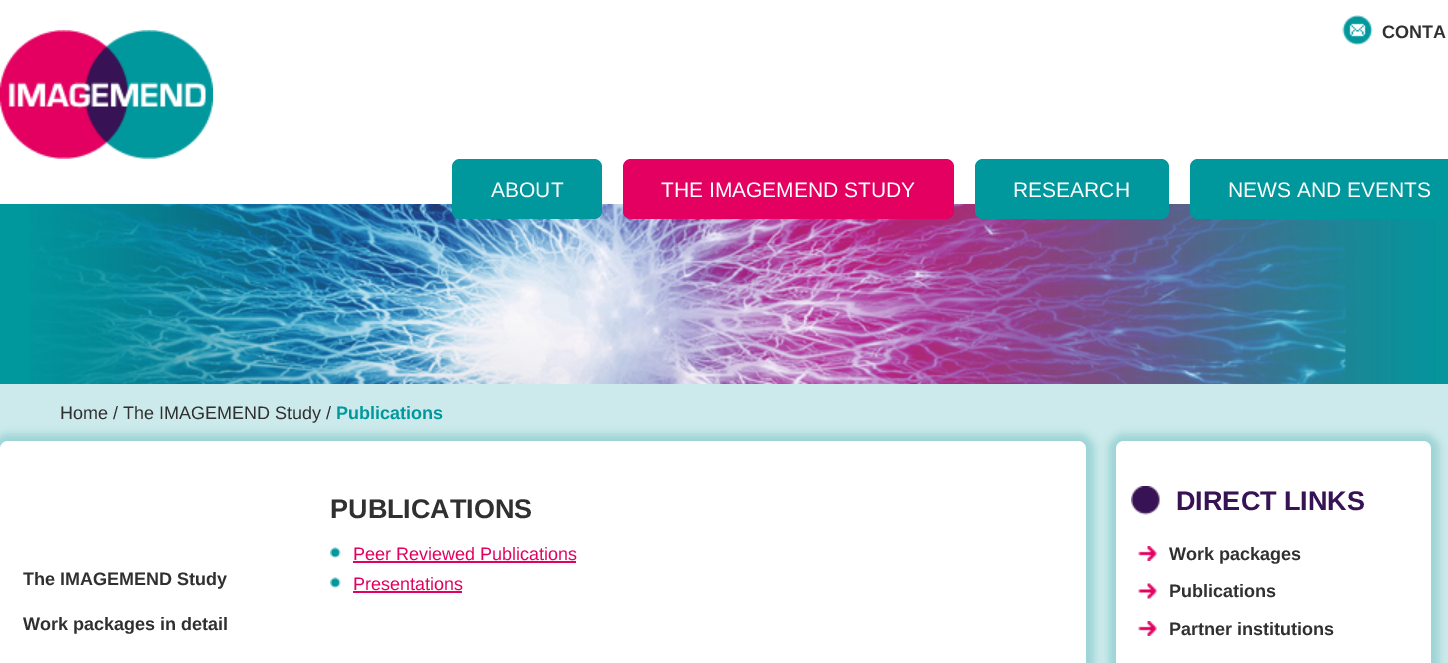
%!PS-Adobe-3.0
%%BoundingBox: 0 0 1448 663
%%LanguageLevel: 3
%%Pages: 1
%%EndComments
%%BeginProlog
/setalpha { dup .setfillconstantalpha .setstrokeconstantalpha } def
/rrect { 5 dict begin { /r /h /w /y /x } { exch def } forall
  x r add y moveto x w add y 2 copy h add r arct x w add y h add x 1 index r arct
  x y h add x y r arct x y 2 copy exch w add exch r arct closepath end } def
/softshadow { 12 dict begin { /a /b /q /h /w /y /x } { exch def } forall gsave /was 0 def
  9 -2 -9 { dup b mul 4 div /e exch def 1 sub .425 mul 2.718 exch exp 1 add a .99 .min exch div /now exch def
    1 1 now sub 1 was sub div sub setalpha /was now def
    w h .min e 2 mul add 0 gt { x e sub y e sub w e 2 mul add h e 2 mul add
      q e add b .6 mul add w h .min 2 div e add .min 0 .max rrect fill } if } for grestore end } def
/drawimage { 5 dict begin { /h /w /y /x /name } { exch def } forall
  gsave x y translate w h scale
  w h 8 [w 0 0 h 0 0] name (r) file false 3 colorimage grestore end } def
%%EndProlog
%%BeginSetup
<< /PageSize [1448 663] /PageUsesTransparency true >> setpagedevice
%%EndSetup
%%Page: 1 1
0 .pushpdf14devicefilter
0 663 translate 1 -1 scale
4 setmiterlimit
1 setgray
0 0 1448 663 rectfill
(images/1.raw) 0 30 213 129 drawimage
(images/2.raw) 1342 15 31 30 drawimage
(images/4.raw) 29 204 1419 180 drawimage
0 0.596 0.616 setrgbcolor
452 159 150 60 8 rrect fill
0.89 0 0.38 setrgbcolor
623 159 331 60 8 rrect fill
0 0.596 0.616 setrgbcolor
975 159 194 60 8 rrect fill
1190 159 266 60 8 rrect fill
0.8 0.918 0.922 setrgbcolor
0 384 1448 279 rectfill
(images/3.raw) 0 204 29 180 drawimage
0.608 0.827 0.835 setrgbcolor
-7 434 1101 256 15 4 1 softshadow
1 setgray
0 441 1086 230 8 rrect fill
(images/5.raw) 330 547 11 11 drawimage
0.89 0 0.38 setrgbcolor
353 561 223 2 rectfill
(images/5.raw) 330 577 11 11 drawimage
353 591 109 2 rectfill
0.608 0.827 0.835 setrgbcolor
1109 434 330 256 15 4 1 softshadow
1 setgray
1116 441 315 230 8 rrect fill
(images/6.raw) 1131 486 29 29 drawimage
(images/7.raw) 1138 546 19 15 drawimage
(images/8.raw) 1138 583 19 16 drawimage
(images/7.raw) 1138 621 19 15 drawimage
/LiberationSans-Bold [18 0 0 -18 0 0] selectfont
0.188 setgray
1382 38 moveto (CONTA) show
/LiberationSans-Regular [21 0 0 -21 0 0] selectfont
1 setgray
491 197 moveto (ABOUT) show
661 197 moveto (THE IMAGEMEND STUDY) show
1013 197 moveto (RESEARCH) show
1228 197 moveto (NEWS AND EVENTS) show
/LiberationSans-Regular [18 0 0 -18 0 0] selectfont
0.188 setgray
60 419 moveto (Home / The IMAGEMEND Study /) show
/LiberationSans-Bold [18 0 0 -18 0 0] selectfont
0 0.596 0.616 setrgbcolor
336 419 moveto (Publications) show
/LiberationSans-Bold [27 0 0 -27 0 0] selectfont
0.188 setgray
330 518 moveto (PUBLICATIONS) show
/LiberationSans-Regular [18 0 0 -18 0 0] selectfont
0.89 0 0.38 setrgbcolor
353 560 moveto (Peer Reviewed Publications) show
353 590 moveto (Presentations) show
/LiberationSans-Bold [18 0 0 -18 0 0] selectfont
0.188 setgray
23 585 moveto (The IMAGEMEND Study) show
23 630 moveto (Work packages in detail) show
/LiberationSans-Bold [27 0 0 -27 0 0] selectfont
0.216 0.071 0.329 setrgbcolor
1176 510 moveto (DIRECT LINKS) show
/LiberationSans-Bold [18 0 0 -18 0 0] selectfont
0.188 setgray
1169 560 moveto (Work packages) show
1169 597 moveto (Publications) show
1169 635 moveto (Partner institutions) show
.poppdf14devicefilter showpage
%%EOF
